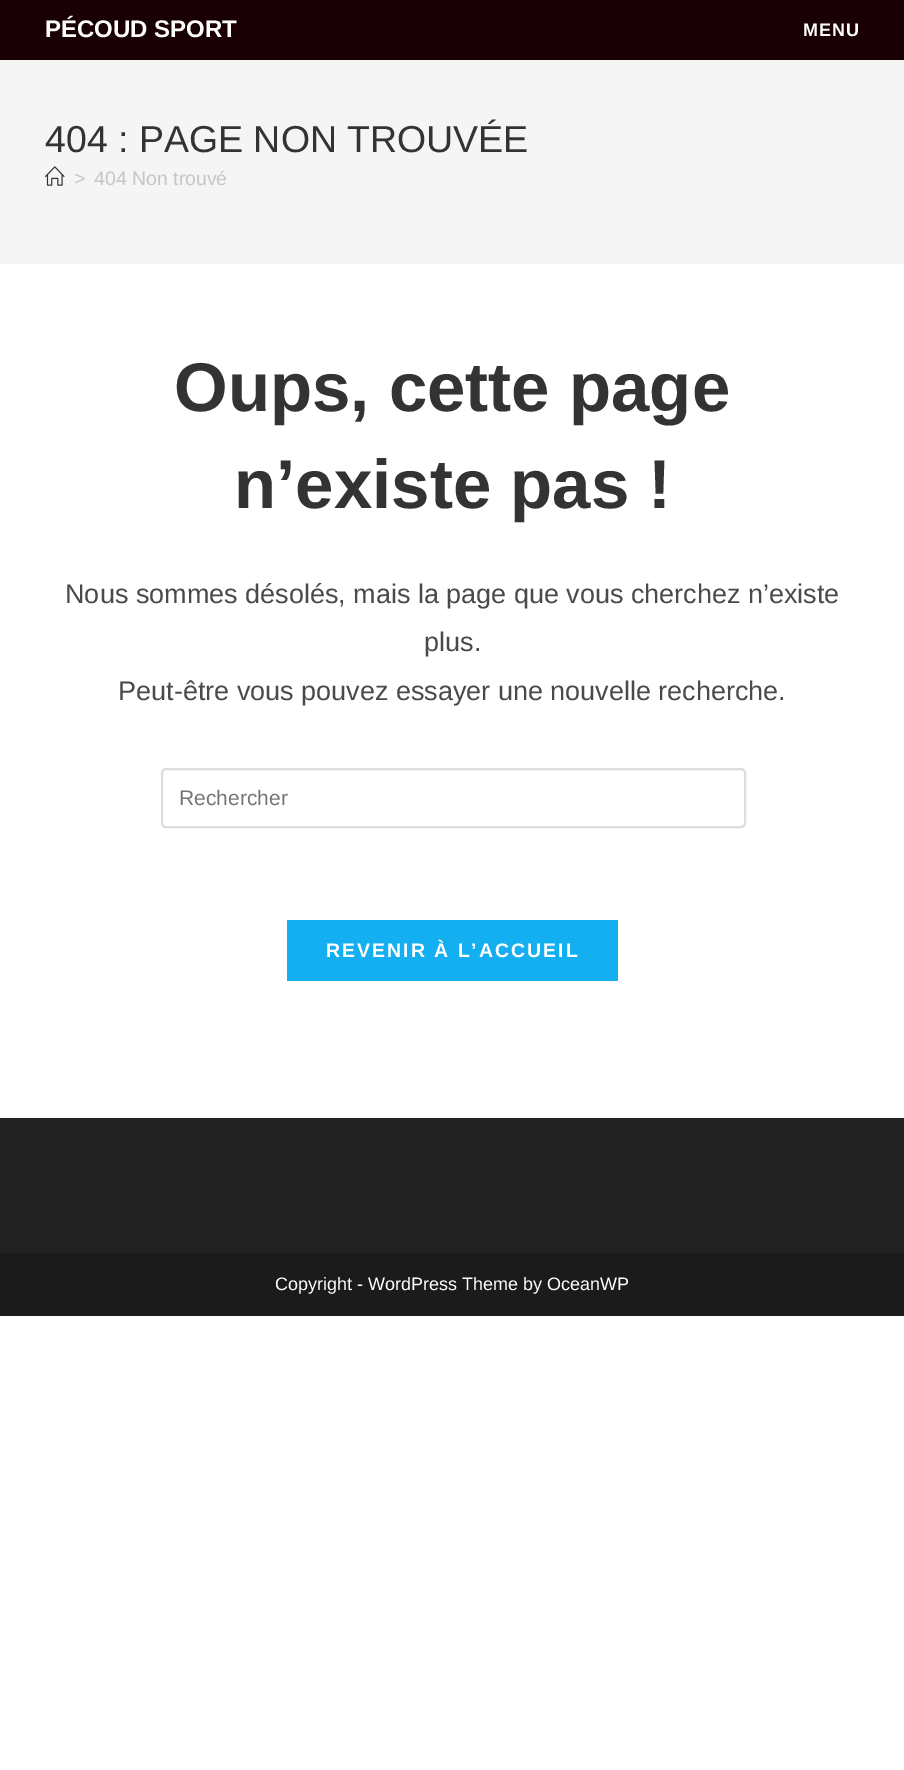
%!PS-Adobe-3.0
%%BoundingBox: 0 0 904 1770
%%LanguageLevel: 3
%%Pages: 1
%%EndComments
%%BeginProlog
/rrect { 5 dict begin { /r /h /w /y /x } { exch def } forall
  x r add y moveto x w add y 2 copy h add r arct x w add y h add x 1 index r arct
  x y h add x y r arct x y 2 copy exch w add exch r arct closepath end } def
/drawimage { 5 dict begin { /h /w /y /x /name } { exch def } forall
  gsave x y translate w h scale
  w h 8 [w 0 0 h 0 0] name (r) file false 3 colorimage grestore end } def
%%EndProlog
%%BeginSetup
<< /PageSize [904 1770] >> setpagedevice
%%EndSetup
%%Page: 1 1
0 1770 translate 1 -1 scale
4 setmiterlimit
1 setgray
0 0 904 1770 rectfill
0.098 0 0.016 setrgbcolor
0 0 904 60 rectfill
0.949 setgray
0 60 904 2 rectfill
0.961 setgray
0 62 904 202 rectfill
(images/1.raw) 45 166 20 20 drawimage
0.867 setgray
2 setlinewidth
162 769 583 58 4 rrect stroke
0.075 0.686 0.941 setrgbcolor
287 920 331 61 rectfill
0.133 setgray
0 1118 904 135 rectfill
0.106 setgray
0 1253 904 63 rectfill
/LiberationSans-Bold [24 0 0 -24 0 0] selectfont
1 setgray
45 37 moveto (PÉCOUD SPORT) show
/LiberationSans-Bold [18 0 0 -18 0 0] selectfont
803 36 moveto 1 0 (MENU) ashow
/LiberationSans-Regular [37.5 0 0 -37.5 0 0] selectfont
0.2 setgray
45 152 moveto (404 : PAGE NON TROUVÉE) show
/LiberationSans-Regular [19.5 0 0 -19.5 0 0] selectfont
0.776 setgray
74 185 moveto (>) show
94 185 moveto (404 Non trouvé) show
/LiberationSans-Bold [69 0 0 -69 0 0] selectfont
0.2 setgray
174 411 moveto (Oups, cette page) show
234 508 moveto (n’existe pas !) show
/LiberationSans-Regular [27 0 0 -27 0 0] selectfont
0.29 setgray
65 603 moveto (Nous sommes désolés, mais la page que vous cherchez n’existe) show
424 651 moveto (plus.) show
118 700 moveto (Peut-être vous pouvez essayer une nouvelle recherche.) show
/LiberationSans-Regular [21 0 0 -21 0 0] selectfont
0.459 setgray
179 805 moveto (Rechercher) show
/LiberationSans-Bold [19.5 0 0 -19.5 0 0] selectfont
1 setgray
326 957 moveto 2 0 (REVENIR À L’ACCUEIL) ashow
/LiberationSans-Regular [18 0 0 -18 0 0] selectfont
275 1290 moveto (Copyright - WordPress Theme by OceanWP) show
showpage
%%EOF
